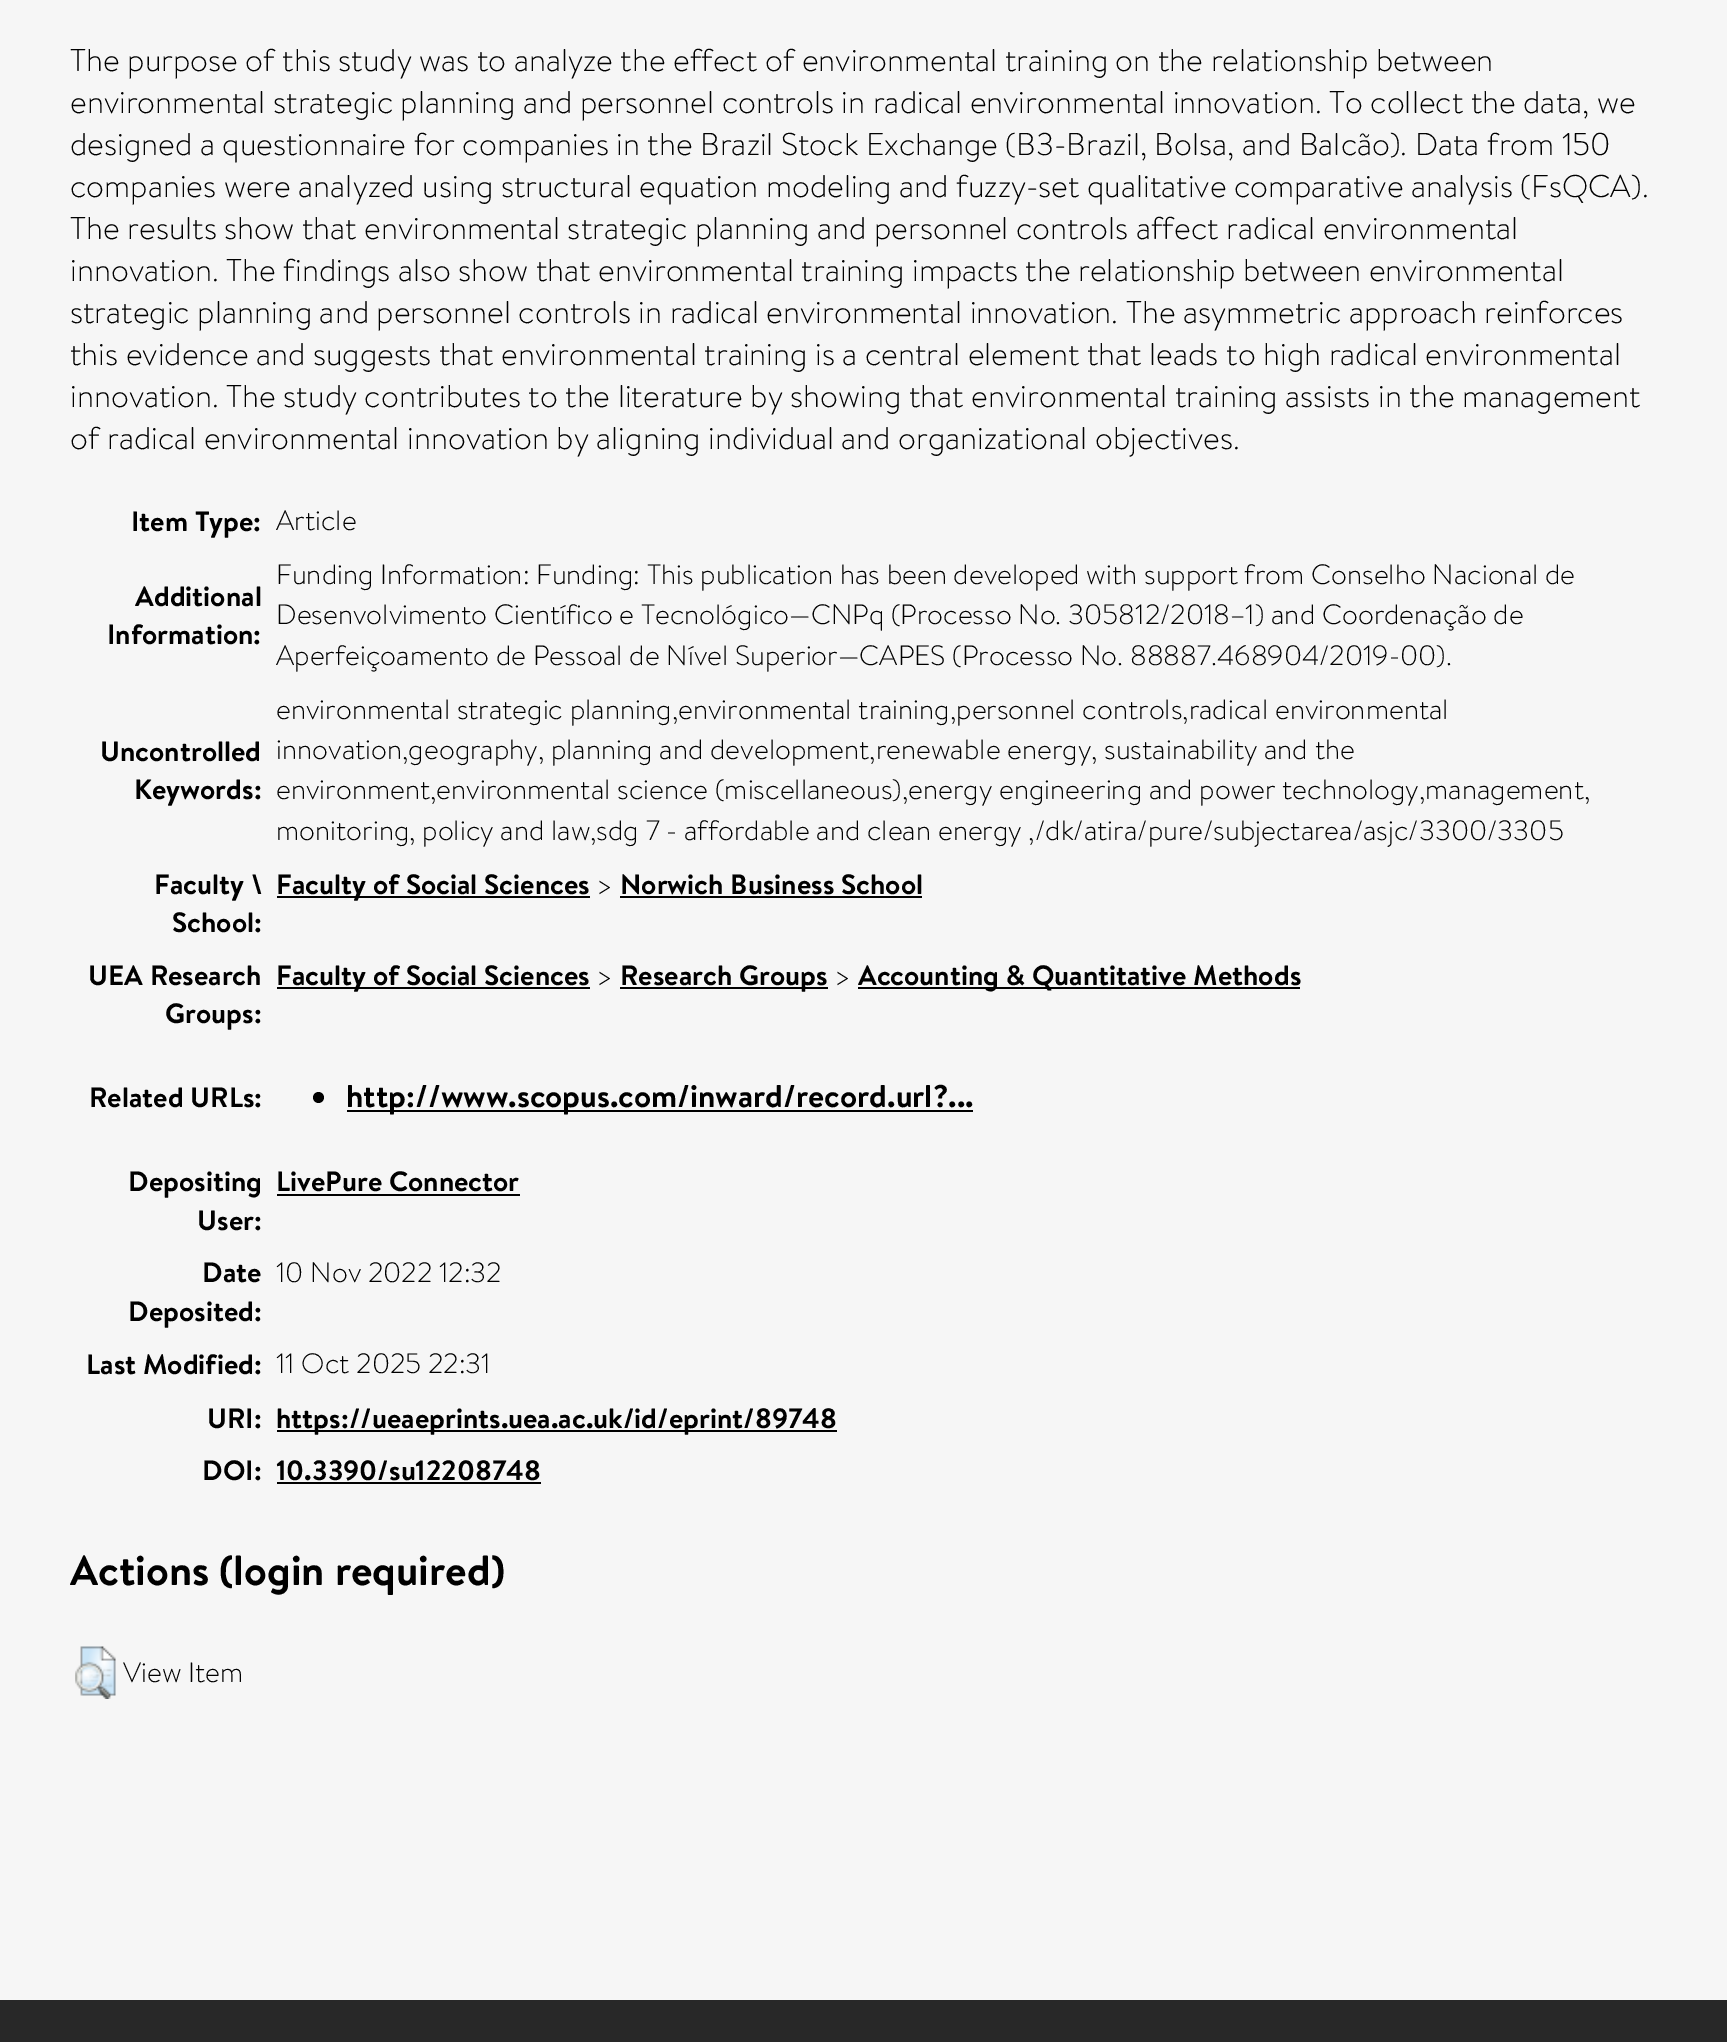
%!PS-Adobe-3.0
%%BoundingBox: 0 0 1727 2042
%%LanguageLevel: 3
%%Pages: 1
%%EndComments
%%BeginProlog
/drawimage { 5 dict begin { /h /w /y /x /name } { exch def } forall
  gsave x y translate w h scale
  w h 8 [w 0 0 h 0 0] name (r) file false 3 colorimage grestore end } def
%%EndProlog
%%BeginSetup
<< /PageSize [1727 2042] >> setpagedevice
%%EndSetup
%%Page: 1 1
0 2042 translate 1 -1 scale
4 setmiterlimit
0.965 setgray
0 0 1727 2042 rectfill
0 setgray
277 896 313 2 rectfill
620 896 302 2 rectfill
277 987 313 2 rectfill
620 987 208 2 rectfill
858 987 442 2 rectfill
newpath 318.5 1097.5 5.5 0 360 arc closepath fill
347 1110 626 2 rectfill
277 1194 243 2 rectfill
277 1430 560 2 rectfill
277 1482 264 2 rectfill
(images/1.raw) 75 1646 41 53 drawimage
0.157 setgray
0 2000 1727 42 rectfill
/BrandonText-Light [31.5 0 0 -31.5 0 0] selectfont
0 setgray
70 71 moveto (The purpose of this study was to analyze the effect of environmental training on the relationship between) show
70 113 moveto (environmental strategic planning and personnel controls in radical environmental innovation. To collect the data, we) show
70 155 moveto (designed a questionnaire for companies in the Brazil Stock Exchange \(B3-Brazil, Bolsa, and Balcão\). Data from 150) show
70 197 moveto (companies were analyzed using structural equation modeling and fuzzy-set qualitative comparative analysis \(FsQCA\).) show
70 239 moveto (The results show that environmental strategic planning and personnel controls affect radical environmental) show
70 281 moveto (innovation. The findings also show that environmental training impacts the relationship between environmental) show
70 323 moveto (strategic planning and personnel controls in radical environmental innovation. The asymmetric approach reinforces) show
70 365 moveto (this evidence and suggests that environmental training is a central element that leads to high radical environmental) show
70 407 moveto (innovation. The study contributes to the literature by showing that environmental training assists in the management) show
70 449 moveto (of radical environmental innovation by aligning individual and organizational objectives.) show
/BrandonText-Bold [28 0 0 -28 0 0] selectfont
131 531 moveto (Item Type:) show
/BrandonText-Light [28 0 0 -28 0 0] selectfont
276 530 moveto (Article) show
/BrandonText-Bold [28 0 0 -28 0 0] selectfont
135 606 moveto (Additional) show
107 644 moveto (Information:) show
/BrandonText-Light [28 0 0 -28 0 0] selectfont
276 584 moveto (Funding Information: Funding: This publication has been developed with support from Conselho Nacional de) show
276 624 moveto (Desenvolvimento Científico e Tecnológico—CNPq \(Processo No. 305812/2018–1\) and Coordenação de) show
276 665 moveto (Aperfeiçoamento de Pessoal de Nível Superior—CAPES \(Processo No. 88887.468904/2019-00\).) show
/BrandonText-Bold [28 0 0 -28 0 0] selectfont
100 761 moveto (Uncontrolled) show
134 799 moveto (Keywords:) show
/BrandonText-Light [28 0 0 -28 0 0] selectfont
276 719 moveto (environmental strategic planning,environmental training,personnel controls,radical environmental) show
276 759 moveto (innovation,geography, planning and development,renewable energy, sustainability and the) show
276 799 moveto (environment,environmental science \(miscellaneous\),energy engineering and power technology,management,) show
276 840 moveto (monitoring, policy and law,sdg 7 - affordable and clean energy ,/dk/atira/pure/subjectarea/asjc/3300/3305) show
/BrandonText-Bold [28 0 0 -28 0 0] selectfont
154 894 moveto (Faculty \\) show
172 932 moveto (School:) show
276 894 moveto (Faculty of Social Sciences) show
/BrandonText-Light [28 0 0 -28 0 0] selectfont
596 894 moveto (>) show
/BrandonText-Bold [28 0 0 -28 0 0] selectfont
620 894 moveto (Norwich Business School) show
88 985 moveto (UEA Research) show
165 1023 moveto (Groups:) show
276 985 moveto (Faculty of Social Sciences) show
/BrandonText-Light [28 0 0 -28 0 0] selectfont
596 985 moveto (>) show
/BrandonText-Bold [28 0 0 -28 0 0] selectfont
620 985 moveto (Research Groups) show
/BrandonText-Light [28 0 0 -28 0 0] selectfont
834 985 moveto (>) show
/BrandonText-Bold [28 0 0 -28 0 0] selectfont
858 985 moveto (Accounting & Quantitative Methods) show
89 1107 moveto (Related URLs:) show
/BrandonText-Bold [31.5 0 0 -31.5 0 0] selectfont
346 1107 moveto (http://www.scopus.com/inward/record.url?...) show
/BrandonText-Bold [28 0 0 -28 0 0] selectfont
128 1191 moveto (Depositing) show
197 1230 moveto (User:) show
276 1191 moveto (LivePure Connector) show
202 1282 moveto (Date) show
128 1321 moveto (Deposited:) show
/BrandonText-Light [28 0 0 -28 0 0] selectfont
276 1282 moveto (10 Nov 2022 12:32) show
/BrandonText-Bold [28 0 0 -28 0 0] selectfont
86 1374 moveto (Last Modified:) show
/BrandonText-Light [28 0 0 -28 0 0] selectfont
276 1373 moveto (11 Oct 2025 22:31) show
/BrandonText-Bold [28 0 0 -28 0 0] selectfont
207 1428 moveto (URI:) show
276 1428 moveto (https://ueaeprints.uea.ac.uk/id/eprint/89748) show
202 1480 moveto (DOI:) show
276 1480 moveto (10.3390/su12208748) show
/BrandonText-Bold [42 0 0 -42 0 0] selectfont
70 1585 moveto (Actions \(login required\)) show
/BrandonText-Light [28 0 0 -28 0 0] selectfont
123 1682 moveto (View Item) show
showpage
%%EOF
